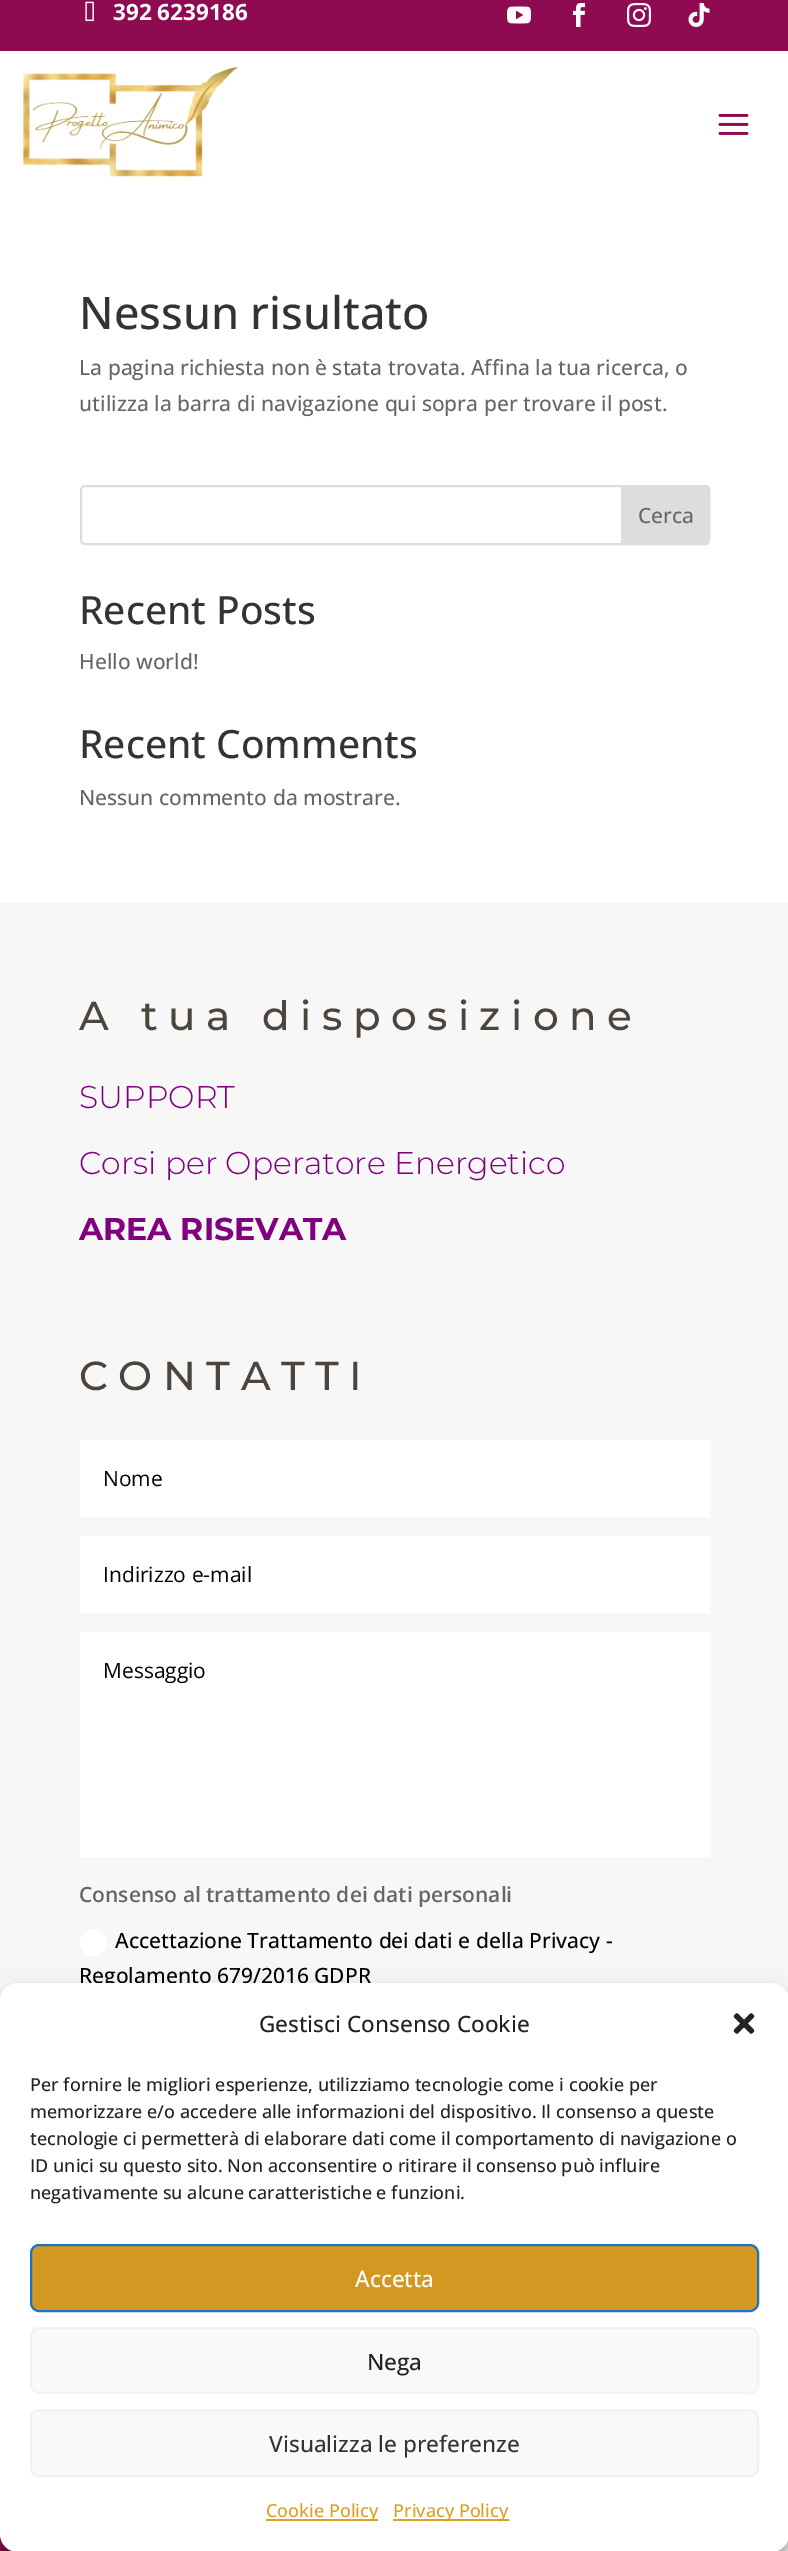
%!PS-Adobe-3.0
%%BoundingBox: 0 0 788 2551
%%LanguageLevel: 3
%%Pages: 1
%%EndComments
%%BeginProlog
/setalpha { dup .setfillconstantalpha .setstrokeconstantalpha } def
/rrect { 5 dict begin { /r /h /w /y /x } { exch def } forall
  x r add y moveto x w add y 2 copy h add r arct x w add y h add x 1 index r arct
  x y h add x y r arct x y 2 copy exch w add exch r arct closepath end } def
/softshadow { 12 dict begin { /a /b /q /h /w /y /x } { exch def } forall gsave /was 0 def
  9 -2 -9 { dup b mul 4 div /e exch def 1 sub .425 mul 2.718 exch exp 1 add a .99 .min exch div /now exch def
    1 1 now sub 1 was sub div sub setalpha /was now def
    w h .min e 2 mul add 0 gt { x e sub y e sub w e 2 mul add h e 2 mul add
      q e add b .6 mul add w h .min 2 div e add .min 0 .max rrect fill } if } for grestore end } def
/drawimage { 5 dict begin { /h /w /y /x /name } { exch def } forall
  gsave x y translate w h scale
  w h 8 [w 0 0 h 0 0] name (r) file false 3 colorimage grestore end } def
%%EndProlog
%%BeginSetup
<< /PageSize [788 2551] /PageUsesTransparency true >> setpagedevice
%%EndSetup
%%Page: 1 1
0 .pushpdf14devicefilter
0 2551 translate 1 -1 scale
4 setmiterlimit
1 setgray
0 0 788 2551 rectfill
0.557 0.043 0.318 setrgbcolor
0 0 788 51 rectfill
(images/1.raw) 85 1 9 20 drawimage
(images/2.raw) 507 6 24 18 drawimage
(images/3.raw) 573 3 13 24 drawimage
(images/4.raw) 627 3 24 24 drawimage
(images/5.raw) 688 3 22 24 drawimage
(images/6.raw) 23 66 215 111 drawimage
(images/7.raw) 718 113 31 22 drawimage
0.867 setgray
2 setlinewidth
81 486 628 58 4 rrect stroke
newpath 622 486 moveto 705 486 lineto 707 486 709 488 709 490 curveto 709 540 lineto 709 542 707 544 705 544 curveto 622 544 lineto closepath gsave fill grestore
stroke
0.969 setgray
0 903 788 1098 rectfill
1 setgray
80 1440 630 77 rectfill
80 1536 630 77 rectfill
80 1632 630 225 rectfill
newpath 93.5 1942.5 13.5 0 360 arc closepath fill
0.557 0.043 0.318 setrgbcolor
0 2534 12 17 rectfill
0 setgray
0 1992 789 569 18 4.5 0.23 softshadow
0 1998 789 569 18 15 0.19 softshadow
/OpenSans-Bold [22.5 0 0 -22.5 0 0] selectfont
1 setgray
113 20 moveto (392 6239186) show
/OpenSans-Medium [45 0 0 -45 0 0] selectfont
0.2 setgray
79 329 moveto (Nessun risultato) show
/OpenSans-Medium [21 0 0 -21 0 0] selectfont
0.4 setgray
79 375 moveto (La pagina richiesta non è stata trovata. Affina la tua ricerca, o) show
79 411 moveto (utilizza la barra di navigazione qui sopra per trovare il post.) show
638 523 moveto (Cerca) show
/OpenSans-Medium [39 0 0 -39 0 0] selectfont
0.2 setgray
79 624 moveto (Recent Posts) show
/OpenSans-Medium [21 0 0 -21 0 0] selectfont
0.4 setgray
79 669 moveto (Hello world!) show
/OpenSans-Medium [39 0 0 -39 0 0] selectfont
0.2 setgray
79 758 moveto (Recent Comments) show
/OpenSans-Medium [21 0 0 -21 0 0] selectfont
0.4 setgray
79 805 moveto (Nessun commento da mostrare.) show
/Montserrat-Medium [40.5 0 0 -40.5 0 0] selectfont
0.298 0.271 0.239 setrgbcolor
79 1030 moveto 10.5 0 (A tua disposizione) ashow
/Montserrat-Light [31.5 0 0 -31.5 0 0] selectfont
0.502 0 0.502 setrgbcolor
79 1108 moveto (SUPPORT) show
79 1174 moveto (Corsi per Operatore Energetico) show
/Montserrat-Bold [31.5 0 0 -31.5 0 0] selectfont
79 1240 moveto (AREA RISEVATA) show
/Montserrat-Medium [40.5 0 0 -40.5 0 0] selectfont
0.298 0.271 0.239 setrgbcolor
79 1390 moveto 10.5 0 (CONTATTI) ashow
/OpenSans-Regular [21 0 0 -21 0 0] selectfont
0 setgray
103 1486 moveto (Nome) show
103 1582 moveto (Indirizzo e-mail) show
103 1678 moveto (Messaggio) show
/OpenSans-SemiBold [21 0 0 -21 0 0] selectfont
0.4 setgray
79 1902 moveto (Consenso al trattamento dei dati personali) show
/OpenSans-Medium [21 0 0 -21 0 0] selectfont
0 setgray
115 1948 moveto (Accettazione Trattamento dei dati e della Privacy -) show
79 1983 moveto (Regolamento 679/2016 GDPR) show
1 setgray
0 1983 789 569 18 rrect fill
/OpenSans-Medium [22.5 0 0 -22.5 0 0] selectfont
0.133 setgray
259 2032 moveto (Gestisci Consenso Cookie) show
(images/8.raw) 733 2013 22 21 drawimage
/OpenSans-Medium [18 0 0 -18 0 0] selectfont
30 2091 moveto (Per fornire le migliori esperienze, utilizziamo tecnologie come i cookie per) show
30 2118 moveto (memorizzare e/o accedere alle informazioni del dispositivo. Il consenso a queste) show
30 2145 moveto (tecnologie ci permetterà di elaborare dati come il comportamento di navigazione o) show
30 2172 moveto (ID unici su questo sito. Non acconsentire o ritirare il consenso può influire) show
30 2199 moveto (negativamente su alcune caratteristiche e funzioni.) show
0.827 0.596 0.129 setrgbcolor
31 2245 727 66 8 rrect gsave fill grestore
0.118 0.451 0.745 setrgbcolor
stroke
/OpenSans-Medium [22.5 0 0 -22.5 0 0] selectfont
1 setgray
355 2287 moveto (Accetta) show
0.976 setgray
31 2328 727 65 8 rrect gsave fill grestore
0.949 setgray
stroke
0.133 setgray
367 2370 moveto (Nega) show
0.976 setgray
31 2410 727 66 8 rrect gsave fill grestore
0.949 setgray
stroke
0.2 setgray
269 2452 moveto (Visualizza le preferenze) show
0.859 0.627 0.137 setrgbcolor
266 2519 112 2 rectfill
/OpenSans-Medium [18 0 0 -18 0 0] selectfont
266 2517 moveto (Cookie Policy) show
393 2519 116 2 rectfill
393 2517 moveto (Privacy Policy) show
.poppdf14devicefilter showpage
%%EOF
